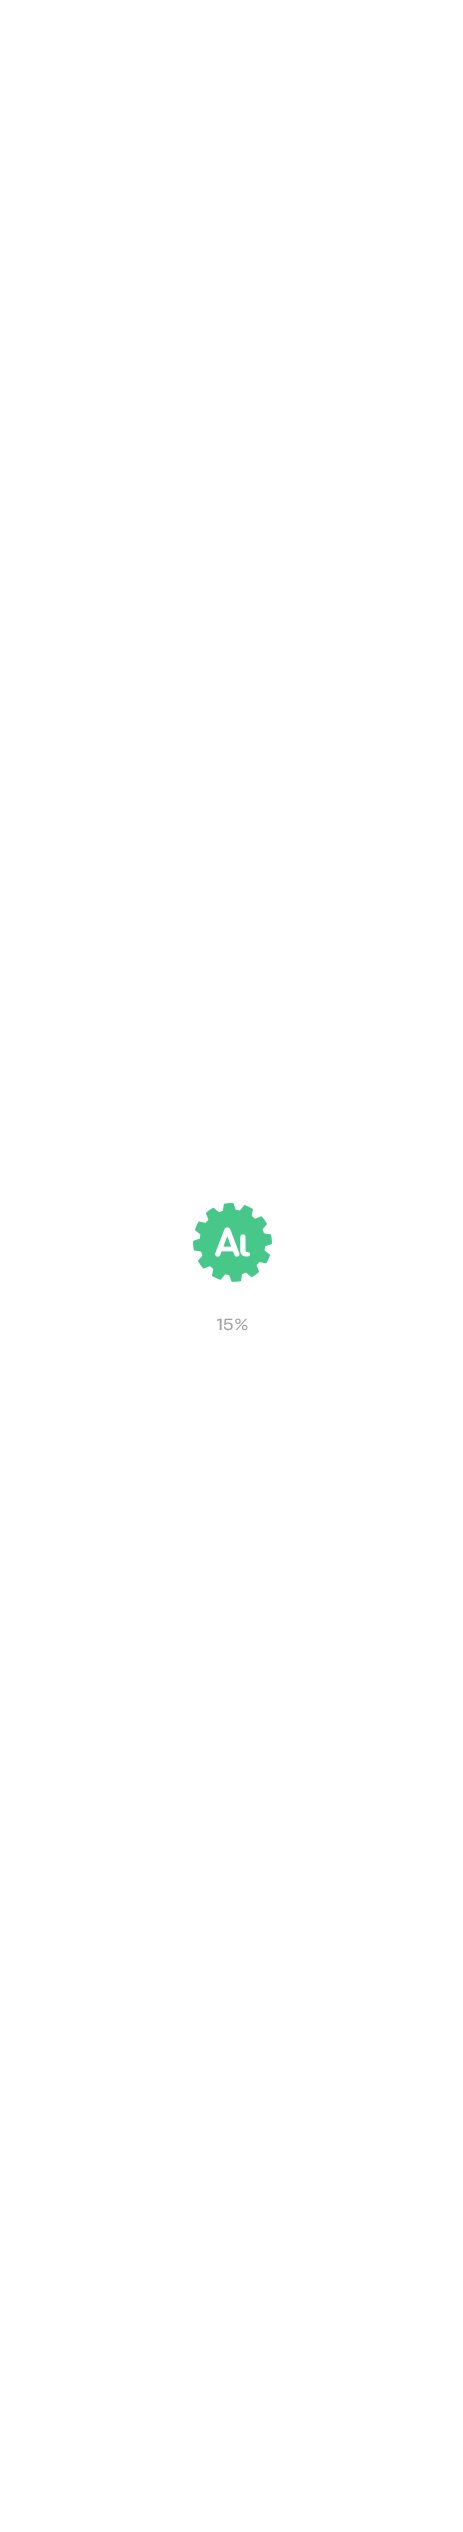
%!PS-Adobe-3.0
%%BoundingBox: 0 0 463 2532
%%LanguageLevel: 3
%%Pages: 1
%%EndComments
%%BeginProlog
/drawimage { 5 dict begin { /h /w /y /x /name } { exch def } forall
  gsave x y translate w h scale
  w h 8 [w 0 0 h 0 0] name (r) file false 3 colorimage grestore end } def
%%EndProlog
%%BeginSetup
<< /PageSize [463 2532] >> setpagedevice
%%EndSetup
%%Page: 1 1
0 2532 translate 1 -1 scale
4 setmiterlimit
1 setgray
0 0 463 2532 rectfill
(images/1.raw) 193 1203 79 79 drawimage
(images/2.raw) 215 1227 35 30 drawimage
/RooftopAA-Regular [16 0 0 -16 0 0] selectfont
0.627 setgray
216 1330 moveto (15%) show
showpage
%%EOF
